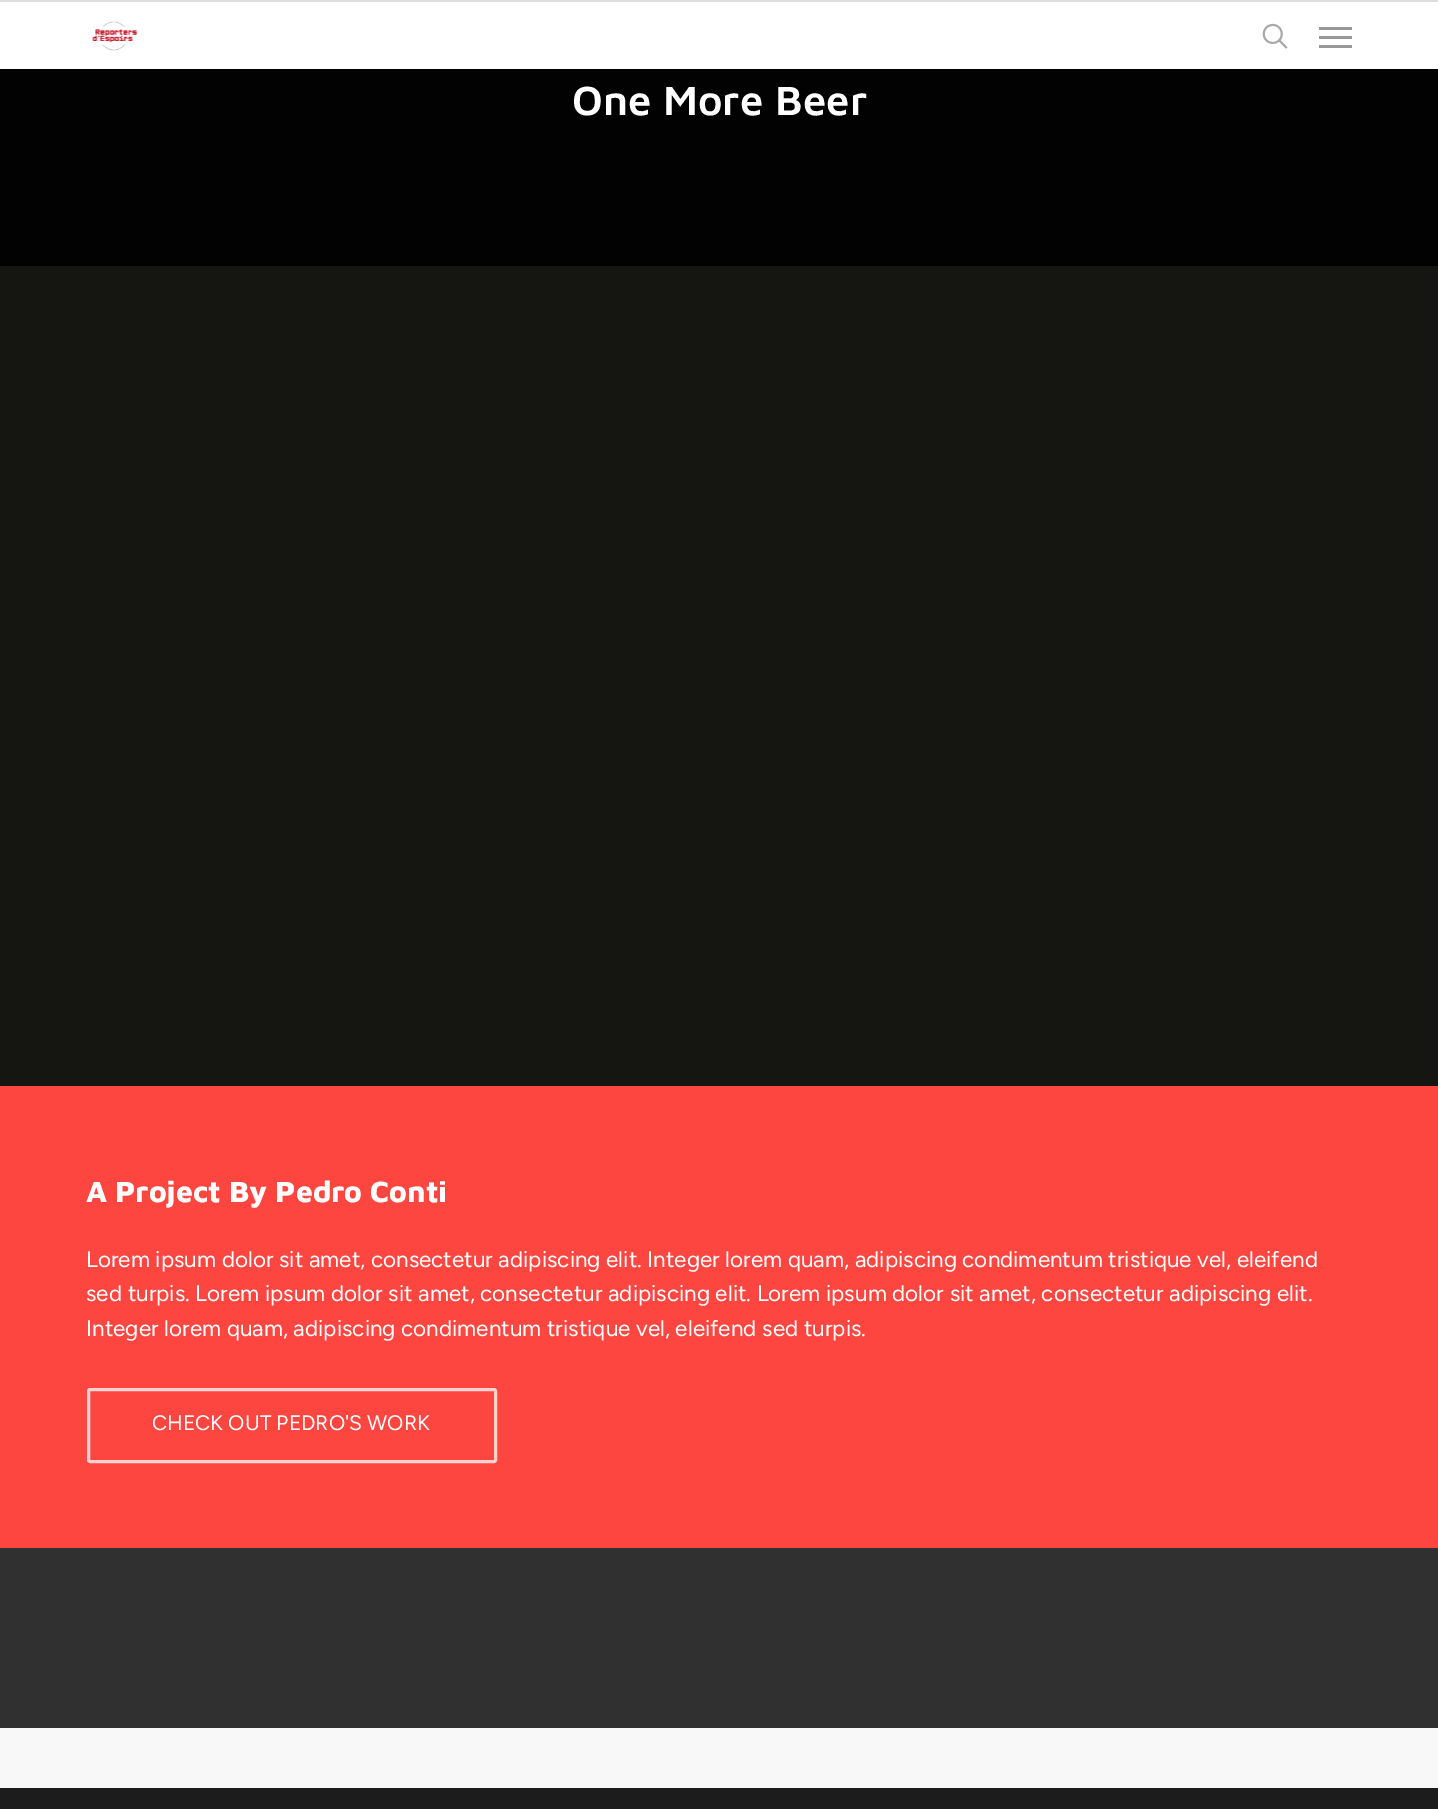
%!PS-Adobe-3.0
%%BoundingBox: 0 0 1438 1809
%%LanguageLevel: 3
%%Pages: 1
%%EndComments
%%BeginProlog
/rrect { 5 dict begin { /r /h /w /y /x } { exch def } forall
  x r add y moveto x w add y 2 copy h add r arct x w add y h add x 1 index r arct
  x y h add x y r arct x y 2 copy exch w add exch r arct closepath end } def
/drawimage { 5 dict begin { /h /w /y /x /name } { exch def } forall
  gsave x y translate w h scale
  w h 8 [w 0 0 h 0 0] name (r) file false 3 colorimage grestore end } def
%%EndProlog
%%BeginSetup
<< /PageSize [1438 1809] >> setpagedevice
%%EndSetup
%%Page: 1 1
0 1809 translate 1 -1 scale
4 setmiterlimit
0.11 setgray
0 0 1438 1809 rectfill
1 setgray
0 2 1438 67 rectfill
0.867 setgray
0 0 1438 2 rectfill
(images/1.raw) 92 21 46 30 drawimage
(images/2.raw) 1262 23 26 26 drawimage
0.6 setgray
1319 27 33 3 rectfill
1319 45 33 3 rectfill
1319 36 33 3 rectfill
0.008 setgray
0 69 1438 197 rectfill
0.973 setgray
0 1728 1438 60 rectfill
0.082 0.086 0.067 setrgbcolor
0 266 1438 820 rectfill
0.996 0.275 0.255 setrgbcolor
0 1086 1438 462 rectfill
1 0.82 0.816 setrgbcolor
3 setlinewidth
88.5 1389.5 407 72 1.5 rrect stroke
0.188 setgray
0 1548 1438 180 rectfill
/MavenPro-SemiBold [42 0 0 -42 0 0] selectfont
1 setgray
572 115 moveto (One More Beer) show
/MavenPro-ExtraBold [30 0 0 -30 0 0] selectfont
86 1202 moveto (A Project By Pedro Conti) show
/Figtree-Regular [22.5 0 0 -22.5 0 0] selectfont
86 1267 moveto (Lorem ipsum dolor sit amet, consectetur adipiscing elit. Integer lorem quam, adipiscing condimentum tristique vel, eleifend) show
86 1301 moveto (sed turpis. Lorem ipsum dolor sit amet, consectetur adipiscing elit. Lorem ipsum dolor sit amet, consectetur adipiscing elit.) show
86 1336 moveto (Integer lorem quam, adipiscing condimentum tristique vel, eleifend sed turpis.) show
/Figtree-Regular [21 0 0 -21 0 0] selectfont
152 1430 moveto (CHECK OUT PEDRO'S WORK) show
showpage
%%EOF
